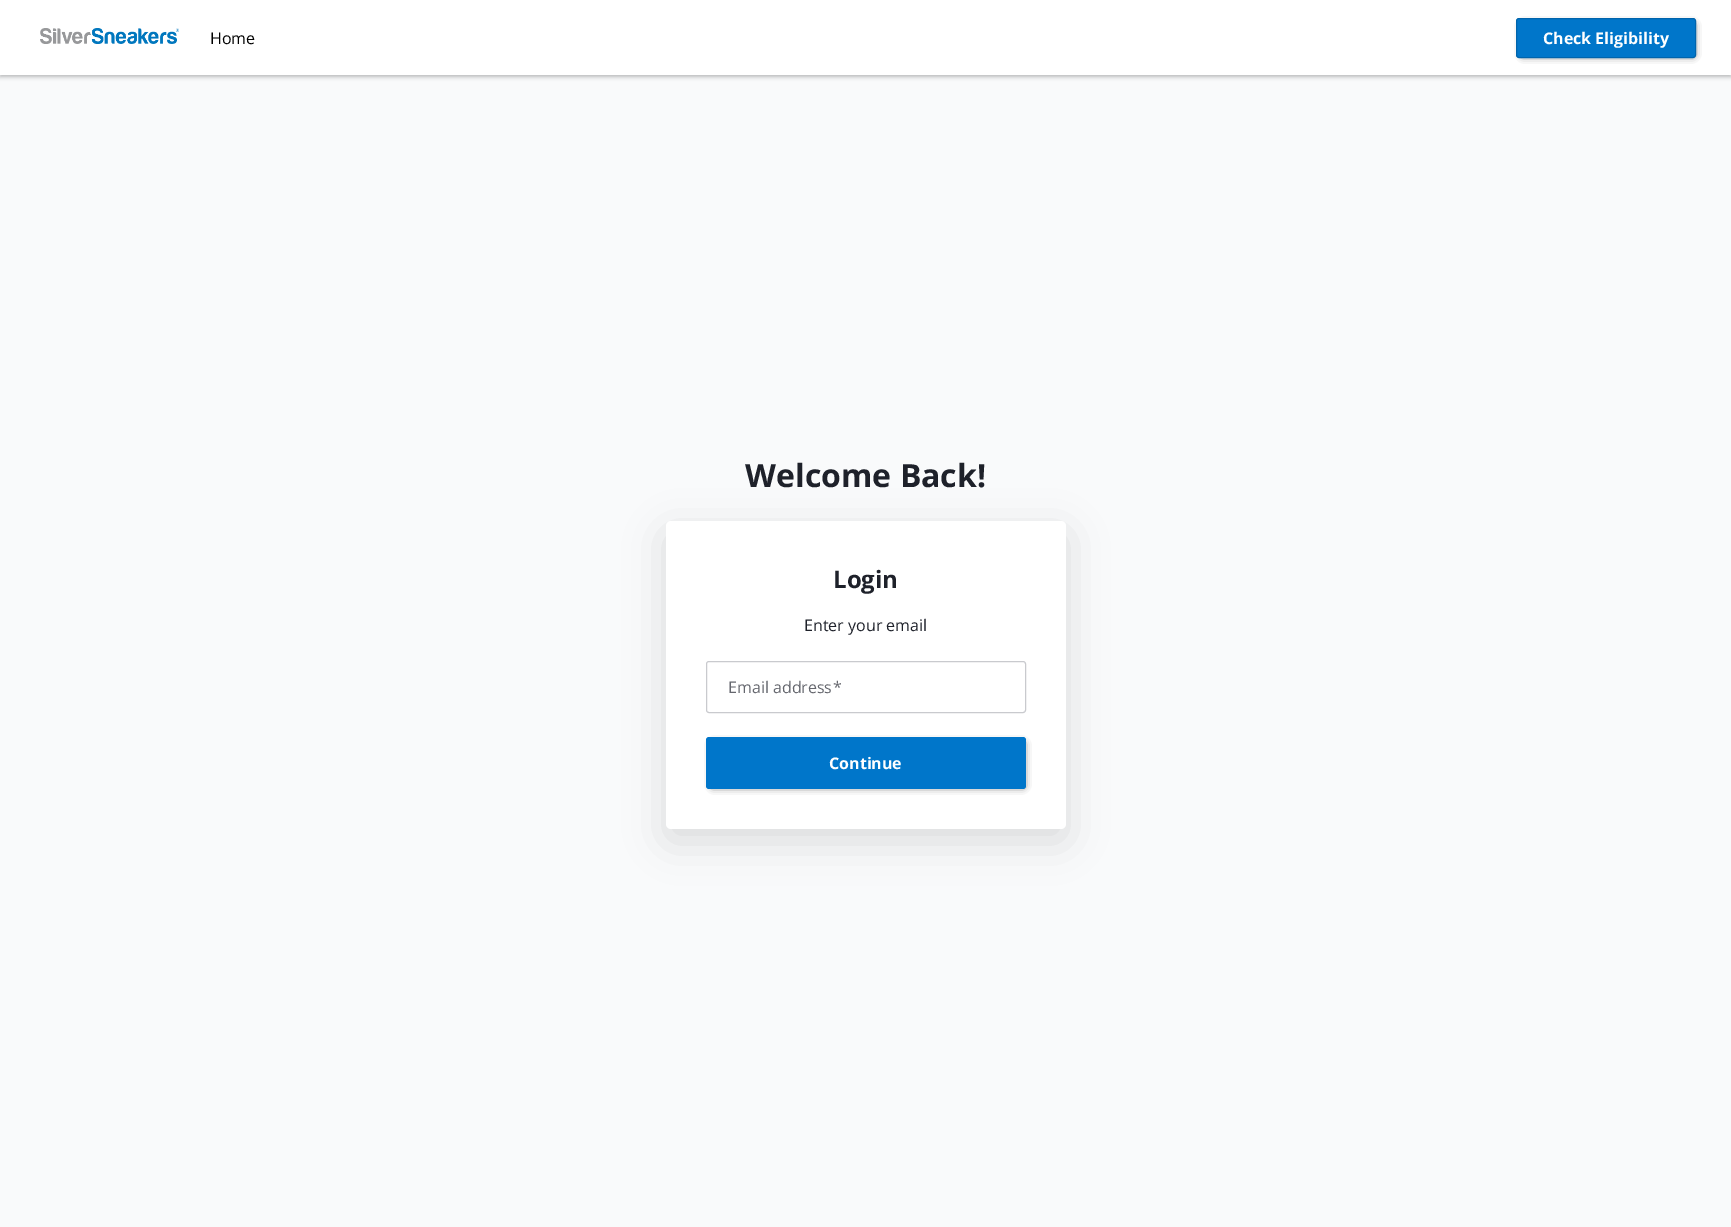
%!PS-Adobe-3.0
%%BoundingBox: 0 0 1731 1227
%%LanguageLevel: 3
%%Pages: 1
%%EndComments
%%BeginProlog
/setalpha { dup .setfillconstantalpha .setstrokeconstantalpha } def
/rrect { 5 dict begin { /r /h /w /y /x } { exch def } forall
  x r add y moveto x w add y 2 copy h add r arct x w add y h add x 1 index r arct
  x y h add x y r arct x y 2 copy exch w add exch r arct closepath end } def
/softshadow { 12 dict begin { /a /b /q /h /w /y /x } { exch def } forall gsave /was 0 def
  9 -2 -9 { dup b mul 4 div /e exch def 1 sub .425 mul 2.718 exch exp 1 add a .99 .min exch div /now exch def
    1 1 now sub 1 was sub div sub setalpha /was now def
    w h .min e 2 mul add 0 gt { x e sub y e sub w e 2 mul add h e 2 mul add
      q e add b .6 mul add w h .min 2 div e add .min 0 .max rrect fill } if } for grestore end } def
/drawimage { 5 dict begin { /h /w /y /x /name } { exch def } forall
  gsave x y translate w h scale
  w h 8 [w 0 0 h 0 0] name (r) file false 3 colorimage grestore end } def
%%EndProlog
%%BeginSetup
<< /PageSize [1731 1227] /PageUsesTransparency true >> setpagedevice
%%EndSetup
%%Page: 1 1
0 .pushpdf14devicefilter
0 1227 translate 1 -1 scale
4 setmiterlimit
0.976 0.98 0.984 setrgbcolor
0 0 1731 1227 rectfill
0 setgray
0 2 1731 75 0 2 0.25 softshadow
1 setgray
0 0 1731 75 rectfill
(images/1.raw) 40 28 139 16 drawimage
0 setgray
1523 25 170 30 0 4 1 softshadow
0 0.463 0.792 setrgbcolor
1516.5 18.5 179 39 2.5 rrect gsave fill grestore
0 0.392 0.675 setrgbcolor
stroke
0 setgray
666 533 400 308 5 20 0.12 softshadow
1 setgray
666 521 400 308 5 rrect fill
0.788 0.792 0.808 setrgbcolor
706.5 661.5 319 51 2.5 rrect stroke
0 setgray
713 744 310 42 0 4 1 softshadow
0 0.463 0.792 setrgbcolor
706 737 320 52 3 rrect fill
/OpenSans-Regular [16 0 0 -16 0 0] selectfont
0 setgray
210 44 moveto (Home) show
/OpenSans-Bold [16 0 0 -16 0 0] selectfont
1 setgray
1543 44 moveto (Check Eligibility) show
/OpenSans-Bold [32 0 0 -32 0 0] selectfont
0.118 0.129 0.165 setrgbcolor
745 487 moveto (Welcome Back!) show
/OpenSans-Bold [24 0 0 -24 0 0] selectfont
833 588 moveto (Login) show
/OpenSans-Regular [16 0 0 -16 0 0] selectfont
804 631 moveto (Enter your email) show
0.396 0.404 0.431 setrgbcolor
728 693 moveto (Email address) show
833 693 moveto (*) show
/OpenSans-Bold [16 0 0 -16 0 0] selectfont
1 setgray
829 769 moveto (Continue) show
.poppdf14devicefilter showpage
%%EOF
